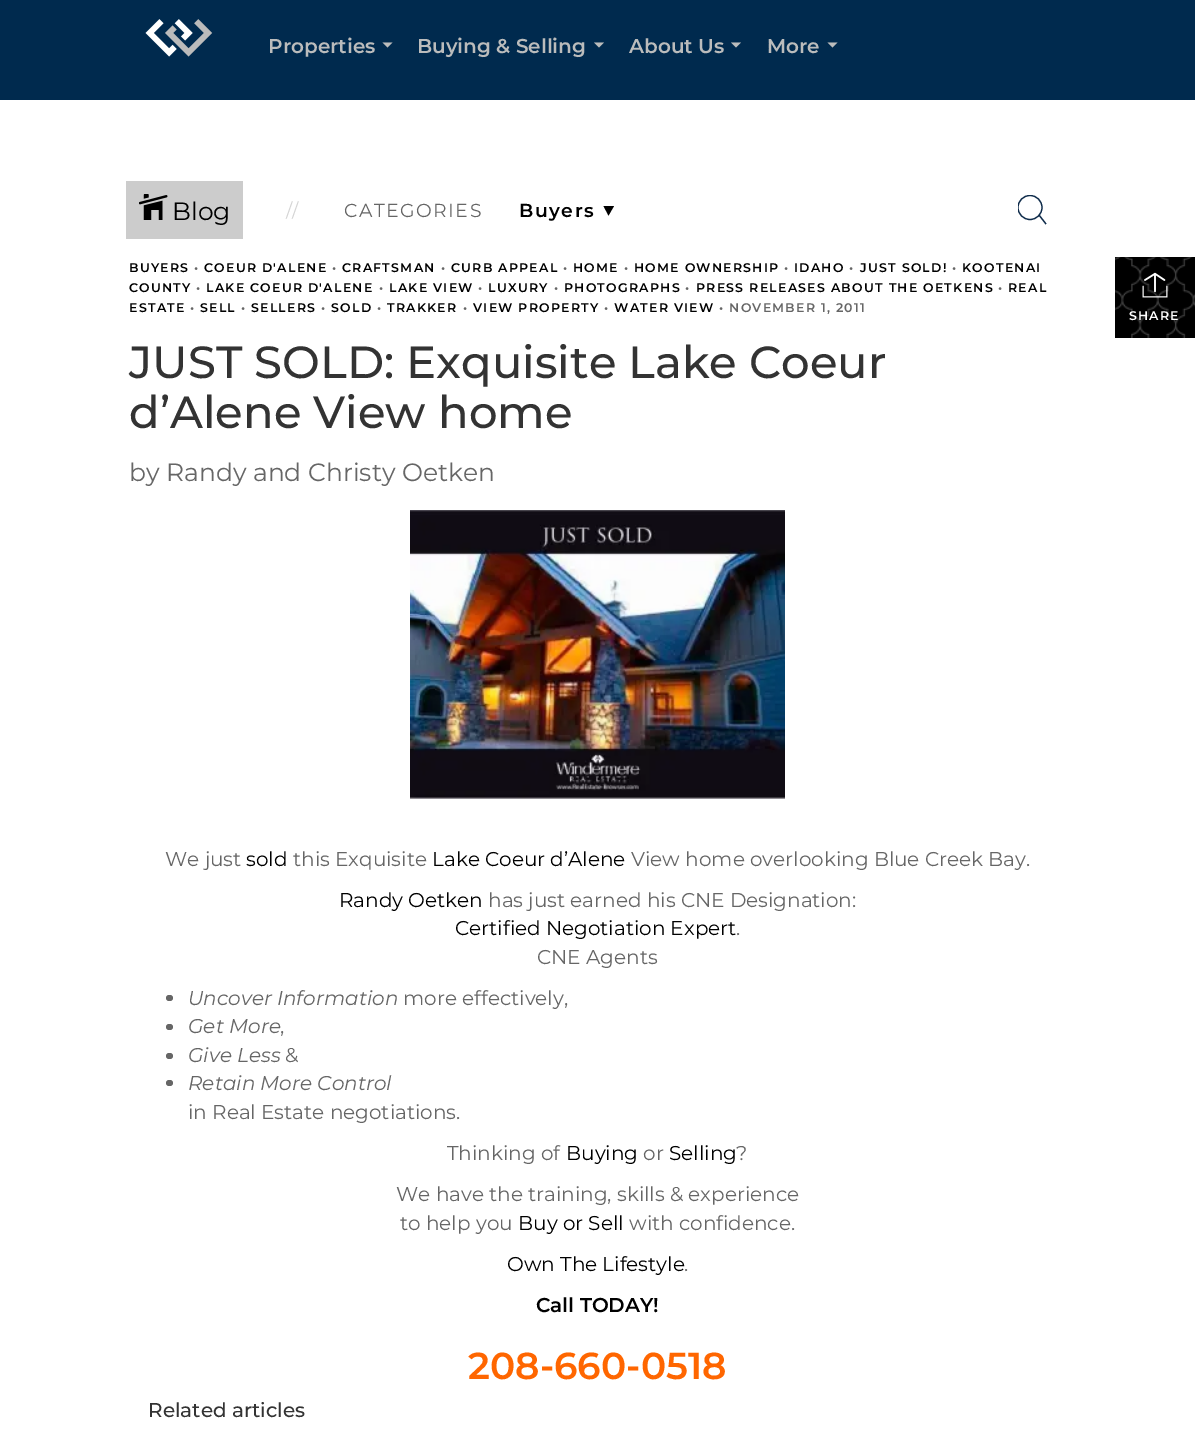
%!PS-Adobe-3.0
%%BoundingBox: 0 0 1195 1433
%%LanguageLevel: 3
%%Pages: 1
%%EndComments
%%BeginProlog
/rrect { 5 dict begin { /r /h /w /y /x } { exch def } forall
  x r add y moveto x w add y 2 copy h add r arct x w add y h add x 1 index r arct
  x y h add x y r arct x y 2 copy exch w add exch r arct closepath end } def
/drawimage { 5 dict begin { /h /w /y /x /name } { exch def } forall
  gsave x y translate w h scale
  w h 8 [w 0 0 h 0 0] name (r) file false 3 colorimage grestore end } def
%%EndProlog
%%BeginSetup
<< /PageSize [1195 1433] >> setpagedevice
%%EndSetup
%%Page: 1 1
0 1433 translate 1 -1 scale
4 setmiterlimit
1 setgray
0 0 1195 1433 rectfill
0 0.165 0.306 setrgbcolor
0 0 1195 100 rectfill
(images/1.raw) 145 19 68 38 drawimage
0.733 0.737 0.737 setrgbcolor
newpath 382.5 42.5 moveto 392.5 42.5 lineto 387.5 47.5 lineto closepath fill
newpath 594 42.5 moveto 604 42.5 lineto 599 47.5 lineto closepath fill
newpath 731 42.5 moveto 741 42.5 lineto 736 47.5 lineto closepath fill
newpath 827.5 42.5 moveto 837.5 42.5 lineto 832.5 47.5 lineto closepath fill
0.8 setgray
126 181 117 58 rectfill
(images/2.raw) 139 194 29 26 drawimage
0 setgray
newpath 608.5 215.5 moveto 614 206 lineto 603.5 206 lineto closepath fill
gsave
1018 195 30 30 rectclip
0.055 0.169 0.29 setrgbcolor
1.2 setlinewidth
newpath 1030 207.5 12 0 360 arc closepath stroke
grestore
0.055 0.169 0.29 setrgbcolor
1.2 setlinewidth
newpath 1039 215 moveto 1046 224 lineto stroke
(images/3.raw) 410 510 375 289 drawimage
0.4 setgray
166 995 7 6 3 rrect fill
166 1024 7 6 3 rrect fill
166 1053 7 6 3 rrect fill
166 1080 7 6 3 rrect fill
(images/4.raw) 1115 257 80 81 drawimage
(images/5.raw) 1142 272 26 26 drawimage
/Montserrat-SemiBold [20 0 0 -20 0 0] selectfont
0.733 0.737 0.737 setrgbcolor
268 53 moveto (Properties) show
417 53 moveto (Buying & Selling) show
629 53 moveto (About Us) show
767 53 moveto (More) show
/Montserrat-Regular [25 0 0 -25 0 0] selectfont
0 setgray
172 220 moveto (Blog) show
/Montserrat-Regular [18.75 0 0 -18.75 0 0] selectfont
0.835 setgray
286 217 moveto (//) show
0.4 setgray
344 217 moveto 1.5 0 (CATEGORIES) ashow
/Montserrat-SemiBold [18.75 0 0 -18.75 0 0] selectfont
0 setgray
519 217 moveto 1.5 0 (Buyers) ashow
/Montserrat-SemiBold [12.5 0 0 -12.5 0 0] selectfont
129 272 moveto 1.25 0 (BUYERS) ashow
0.4 setgray
194 272 moveto 1.25 0 (•) ashow
0 setgray
204 272 moveto 1.25 0 (COEUR D'ALENE) ashow
0.4 setgray
332 272 moveto 1.25 0 (•) ashow
0 setgray
342 272 moveto 1.25 0 (CRAFTSMAN) ashow
0.4 setgray
441 272 moveto 1.25 0 (•) ashow
0 setgray
451 272 moveto 1.25 0 (CURB APPEAL) ashow
0.4 setgray
563 272 moveto 1.25 0 (•) ashow
0 setgray
573 272 moveto 1.25 0 (HOME) ashow
0.4 setgray
624 272 moveto 1.25 0 (•) ashow
0 setgray
634 272 moveto 1.25 0 (HOME OWNERSHIP) ashow
0.4 setgray
784 272 moveto 1.25 0 (•) ashow
0 setgray
794 272 moveto 1.25 0 (IDAHO) ashow
0.4 setgray
849 272 moveto 1.25 0 (•) ashow
0 setgray
860 272 moveto 1.25 0 (JUST SOLD!) ashow
0.4 setgray
952 272 moveto 1.25 0 (•) ashow
0 setgray
962 272 moveto 1.25 0 (KOOTENAI) ashow
129 292 moveto 1.25 0 (COUNTY) ashow
0.4 setgray
196 292 moveto 1.25 0 (•) ashow
0 setgray
206 292 moveto 1.25 0 (LAKE COEUR D'ALENE) ashow
0.4 setgray
379 292 moveto 1.25 0 (•) ashow
0 setgray
389 292 moveto 1.25 0 (LAKE VIEW) ashow
0.4 setgray
478 292 moveto 1.25 0 (•) ashow
0 setgray
488 292 moveto 1.25 0 (LUXURY) ashow
0.4 setgray
554 292 moveto 1.25 0 (•) ashow
0 setgray
564 292 moveto 1.25 0 (PHOTOGRAPHS) ashow
0.4 setgray
685 292 moveto 1.25 0 (•) ashow
0 setgray
696 292 moveto 1.25 0 (PRESS RELEASES ABOUT THE OETKENS) ashow
0.4 setgray
998 292 moveto 1.25 0 (•) ashow
0 setgray
1008 292 moveto 1.25 0 (REAL) ashow
129 312 moveto 1.25 0 (ESTATE) ashow
0.4 setgray
190 312 moveto 1.25 0 (•) ashow
0 setgray
200 312 moveto 1.25 0 (SELL) ashow
0.4 setgray
241 312 moveto 1.25 0 (•) ashow
0 setgray
251 312 moveto 1.25 0 (SELLERS) ashow
0.4 setgray
321 312 moveto 1.25 0 (•) ashow
0 setgray
331 312 moveto 1.25 0 (SOLD) ashow
0.4 setgray
377 312 moveto 1.25 0 (•) ashow
0 setgray
387 312 moveto 1.25 0 (TRAKKER) ashow
0.4 setgray
463 312 moveto 1.25 0 (•) ashow
0 setgray
473 312 moveto 1.25 0 (VIEW PROPERTY) ashow
0.4 setgray
604 312 moveto 1.25 0 (•) ashow
0 setgray
614 312 moveto 1.25 0 (WATER VIEW) ashow
0.4 setgray
719 312 moveto 1.25 0 (• NOVEMBER 1, 2011) ashow
/Montserrat-Medium [45 0 0 -45 0 0] selectfont
0.2 setgray
129 378 moveto (JUST SOLD: Exquisite Lake Coeur) show
129 428 moveto (d’Alene View home) show
/Montserrat-Regular [25 0 0 -25 0 0] selectfont
0.4 setgray
129 481 moveto (by Randy and Christy Oetken) show
/Montserrat-Regular [20 0 0 -20 0 0] selectfont
165 866 moveto (We just) show
0 setgray
246 866 moveto (sold) show
0.4 setgray
293 866 moveto (this Exquisite) show
0 setgray
432 866 moveto (Lake Coeur d’Alene) show
0.4 setgray
631 866 moveto (View home overlooking Blue Creek Bay.) show
0 setgray
339 907 moveto (Randy Oetken) show
0.4 setgray
488 907 moveto (has just earned his CNE Designation:) show
0 setgray
455 935 moveto (Certified Negotiation Expert) show
0.4 setgray
736 935 moveto (.) show
537 964 moveto (CNE Agents) show
/Montserrat-ThinItalic [20 0 0 -20 0 0] selectfont
188 1005 moveto (Uncover Information) show
/Montserrat-Regular [20 0 0 -20 0 0] selectfont
403 1005 moveto (more effectively,) show
/Montserrat-ThinItalic [20 0 0 -20 0 0] selectfont
188 1033 moveto (Get More) show
/Montserrat-Regular [20 0 0 -20 0 0] selectfont
280 1033 moveto (,) show
/Montserrat-ThinItalic [20 0 0 -20 0 0] selectfont
188 1062 moveto (Give Less) show
/Montserrat-Regular [20 0 0 -20 0 0] selectfont
285 1062 moveto (&) show
/Montserrat-ThinItalic [20 0 0 -20 0 0] selectfont
188 1090 moveto (Retain More Control) show
/Montserrat-Regular [20 0 0 -20 0 0] selectfont
188 1119 moveto (in Real Estate negotiations.) show
447 1160 moveto (Thinking of) show
0 setgray
566 1160 moveto (Buying) show
0.4 setgray
643 1160 moveto (or) show
0 setgray
669 1160 moveto (Selling) show
0.4 setgray
736 1160 moveto (?) show
396 1201 moveto (We have the training, skills & experience) show
400 1230 moveto (to help you) show
0 setgray
518 1230 moveto (Buy or Sell) show
0.4 setgray
629 1230 moveto (with confidence.) show
0 setgray
507 1271 moveto (Own The Lifestyle) show
0.4 setgray
684 1271 moveto (.) show
/Montserrat-SemiBold [20 0 0 -20 0 0] selectfont
0 setgray
536 1312 moveto (Call TODAY!) show
/Montserrat-SemiBold [37.5 0 0 -37.5 0 0] selectfont
1 0.4 0 setrgbcolor
468 1379 moveto (208-660-0518) show
/Montserrat-Medium [20 0 0 -20 0 0] selectfont
0.2 setgray
148 1417 moveto (Related articles) show
/Montserrat-SemiBold [12.5 0 0 -12.5 0 0] selectfont
1 setgray
1129 320 moveto 1.25 0 (SHARE) ashow
showpage
%%EOF
